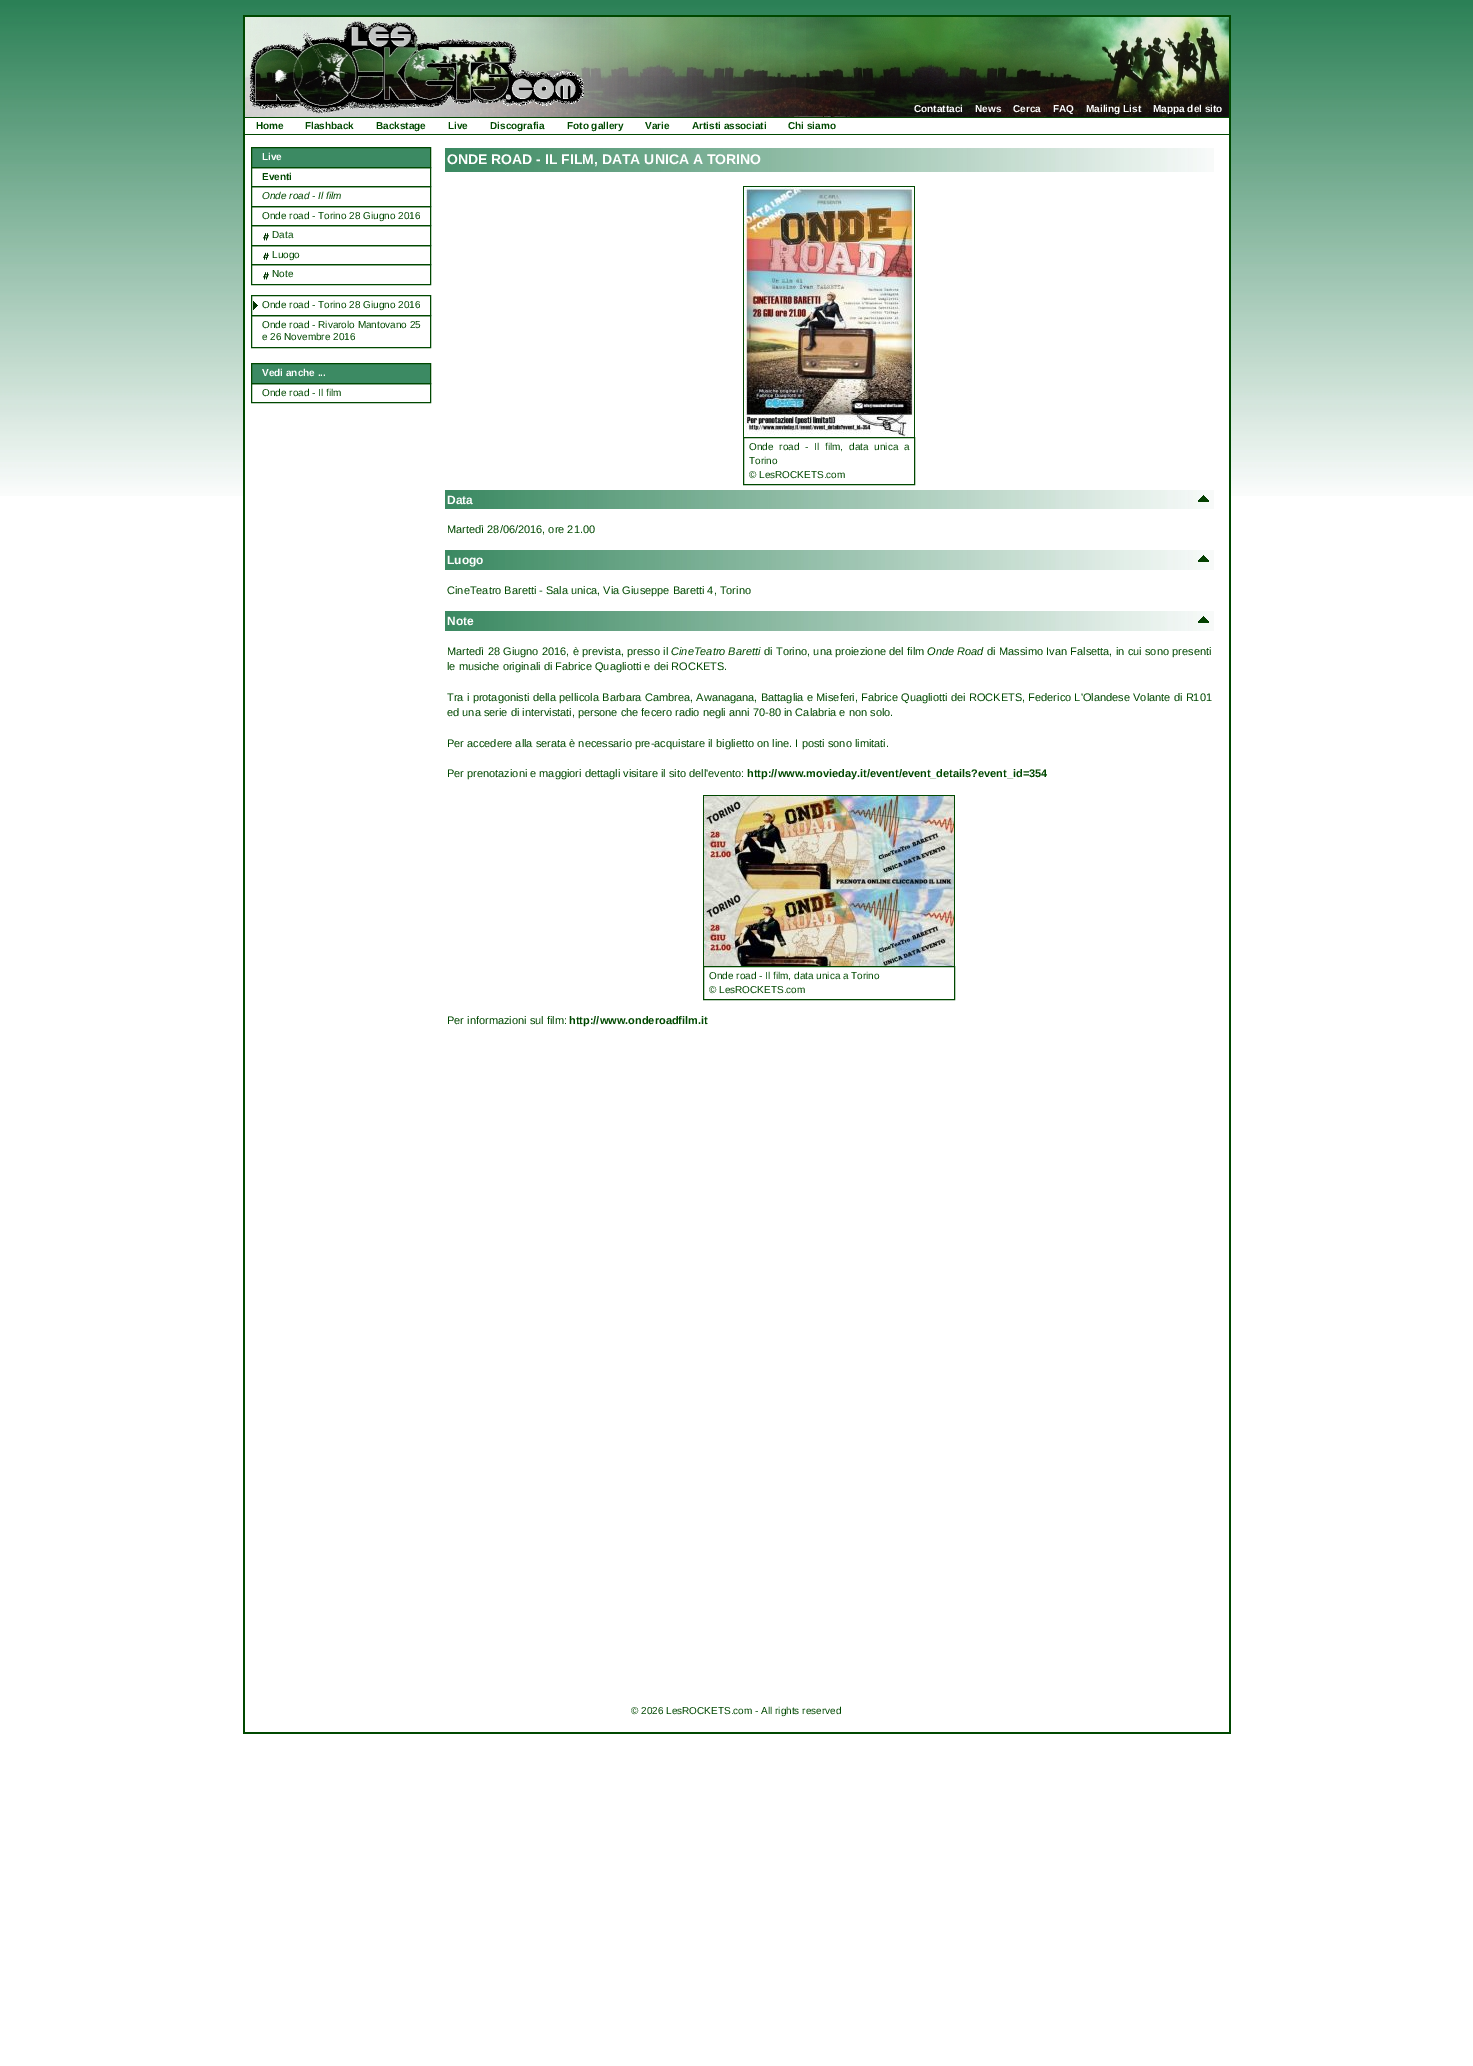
%!PS-Adobe-3.0
%%BoundingBox: 0 0 1473 2066
%%LanguageLevel: 3
%%Pages: 1
%%EndComments
%%BeginProlog
/drawimage { 5 dict begin { /h /w /y /x /name } { exch def } forall
  gsave x y translate w h scale
  w h 8 [w 0 0 h 0 0] name (r) file false 3 colorimage grestore end } def
%%EndProlog
%%BeginSetup
<< /PageSize [1473 2066] >> setpagedevice
%%EndSetup
%%Page: 1 1
0 2066 translate 1 -1 scale
4 setmiterlimit
1 setgray
0 0 1473 2066 rectfill
(images/1.raw) 0 0 1473 496 drawimage
245 118 984 378 rectfill
0 0.282 0 setrgbcolor
243 15 988 2 rectfill
1229 15 2 1675 rectfill
243 15 2 1675 rectfill
(images/2.raw) 245 17 984 100 drawimage
245 117 984 1 rectfill
245 134 984 1 rectfill
0.235 0.541 0.388 setrgbcolor
newpath 251.5 147.5 moveto 430.5 147.5 lineto 430.5 167.5 lineto 251.5 167.5 lineto closepath gsave fill grestore
0 0.282 0 setrgbcolor
stroke
251.5 167.5 179 19 rectstroke
251.5 186.5 179 20 rectstroke
251.5 206.5 179 19 rectstroke
(images/3.raw) 263 233 6 8 drawimage
251.5 225.5 179 20 rectstroke
(images/4.raw) 263 252 6 8 drawimage
251.5 245.5 179 19 rectstroke
(images/5.raw) 263 272 6 8 drawimage
251.5 264.5 179 20 rectstroke
(images/6.raw) 253 301 5 9 drawimage
251.5 295.5 179 20 rectstroke
251.5 315.5 179 32 rectstroke
0.235 0.541 0.388 setrgbcolor
newpath 251.5 363.5 moveto 430.5 363.5 lineto 430.5 383.5 lineto 251.5 383.5 lineto closepath gsave fill grestore
0 0.282 0 setrgbcolor
stroke
251.5 383.5 179 19 rectstroke
(images/7.raw) 445 148 769 24 drawimage
743 186 172 1 rectfill
743 186 1 251 rectfill
(images/8.raw) 744 187 170 250 drawimage
914 186 1 251 rectfill
743.5 437.5 171 47 rectstroke
(images/9.raw) 445 490 769 19 drawimage
(images/10.raw) 1198 495 11 7 drawimage
(images/11.raw) 445 550 769 20 drawimage
(images/10.raw) 1198 555 11 7 drawimage
(images/11.raw) 445 611 769 20 drawimage
(images/10.raw) 1198 616 11 7 drawimage
703 795 252 1 rectfill
703 795 1 171 rectfill
(images/12.raw) 704 796 250 170 drawimage
954 795 1 171 rectfill
703.5 966.5 251 33 rectstroke
1229 1690 2 44 rectfill
243 1732 988 2 rectfill
243 1690 2 44 rectfill
/LiberationSans-Bold [10 0 0 -10 0 0] selectfont
1 setgray
914 112 moveto (Contattaci) show
975 112 moveto (News) show
1013 112 moveto (Cerca) show
1053 112 moveto (FAQ) show
1086 112 moveto (Mailing List) show
1153 112 moveto (Mappa del sito) show
0 0.282 0 setrgbcolor
256 129 moveto (Home) show
305 129 moveto (Flashback) show
376 129 moveto (Backstage) show
448 129 moveto (Live) show
490 129 moveto (Discografia) show
567 129 moveto (Foto gallery) show
645 129 moveto (Varie) show
692 129 moveto (Artisti associati) show
788 129 moveto (Chi siamo) show
1 setgray
262 160 moveto (Live) show
0 0.282 0 setrgbcolor
262 180 moveto (Eventi) show
/LiberationSans-Italic [10 0 0 -10 0 0] selectfont
262 199 moveto (Onde road - Il film) show
/LiberationSans-Regular [10 0 0 -10 0 0] selectfont
262 219 moveto (Onde road - Torino 28 Giugno 2016) show
272 238 moveto (Data) show
272 258 moveto (Luogo) show
272 277 moveto (Note) show
262 308 moveto (Onde road - Torino 28 Giugno 2016) show
262 328 moveto (Onde road - Rivarolo Mantovano 25) show
262 340 moveto (e 26 Novembre 2016) show
/LiberationSans-Bold [10 0 0 -10 0 0] selectfont
1 setgray
262 376 moveto (Vedi anche ...) show
/LiberationSans-Regular [10 0 0 -10 0 0] selectfont
0 0.282 0 setrgbcolor
262 396 moveto (Onde road - Il film) show
/LiberationSans-Bold [14 0 0 -14 0 0] selectfont
1 setgray
447 164 moveto (ONDE ROAD - IL FILM, DATA UNICA A TORINO) show
/LiberationSans-Regular [10 0 0 -10 0 0] selectfont
0 0.282 0 setrgbcolor
749 450 moveto 3 0 32 (Onde road - Il film, data unica a) widthshow
749 464 moveto (Torino) show
749 478 moveto (© LesROCKETS.com) show
/LiberationSans-Bold [12 0 0 -12 0 0] selectfont
1 setgray
447 504 moveto (Data) show
/LiberationSans-Regular [11 0 0 -11 0 0] selectfont
0 0.282 0 setrgbcolor
447 533 moveto (Martedì 28/06/2016, ore 21.00) show
/LiberationSans-Bold [12 0 0 -12 0 0] selectfont
1 setgray
447 564 moveto (Luogo) show
/LiberationSans-Regular [11 0 0 -11 0 0] selectfont
0 0.282 0 setrgbcolor
447 594 moveto (CineTeatro Baretti - Sala unica, Via Giuseppe Baretti 4, Torino) show
/LiberationSans-Bold [12 0 0 -12 0 0] selectfont
1 setgray
447 625 moveto (Note) show
/LiberationSans-Regular [11 0 0 -11 0 0] selectfont
0 0.282 0 setrgbcolor
447 655 moveto 0.25 0 32 (Martedì 28 Giugno 2016, è prevista, presso il) widthshow
/LiberationSans-Italic [11 0 0 -11 0 0] selectfont
671 655 moveto (CineTeatro Baretti) show
/LiberationSans-Regular [11 0 0 -11 0 0] selectfont
764 655 moveto 0.25 0 32 (di Torino, una proiezione del film) widthshow
/LiberationSans-Italic [11 0 0 -11 0 0] selectfont
927 655 moveto (Onde Road) show
/LiberationSans-Regular [11 0 0 -11 0 0] selectfont
987 655 moveto 0.25 0 32 (di Massimo Ivan Falsetta, in cui sono presenti) widthshow
447 670 moveto (le musiche originali di Fabrice Quagliotti e dei ROCKETS.) show
447 701 moveto 0.25 0 32 (Tra i protagonisti della pellicola Barbara Cambrea, Awanagana, Battaglia e Miseferi, Fabrice Quagliotti dei ROCKETS, Federico L'Olandese Volante di R101) widthshow
447 716 moveto (ed una serie di intervistati, persone che fecero radio negli anni 70-80 in Calabria e non solo.) show
447 747 moveto (Per accedere alla serata è necessario pre-acquistare il biglietto on line. I posti sono limitati.) show
447 777 moveto (Per prenotazioni e maggiori dettagli visitare il sito dell'evento:) show
/LiberationSans-Bold [11 0 0 -11 0 0] selectfont
747 777 moveto (http://www.movieday.it/event/event_details?event_id=354) show
/LiberationSans-Regular [10 0 0 -10 0 0] selectfont
709 979 moveto (Onde road - Il film, data unica a Torino) show
709 993 moveto (© LesROCKETS.com) show
/LiberationSans-Regular [11 0 0 -11 0 0] selectfont
447 1024 moveto (Per informazioni sul film:) show
/LiberationSans-Bold [11 0 0 -11 0 0] selectfont
569 1024 moveto (http://www.onderoadfilm.it) show
/LiberationSans-Regular [10 0 0 -10 0 0] selectfont
631 1714 moveto (© 2026 LesROCKETS.com - All rights reserved) show
showpage
%%EOF
